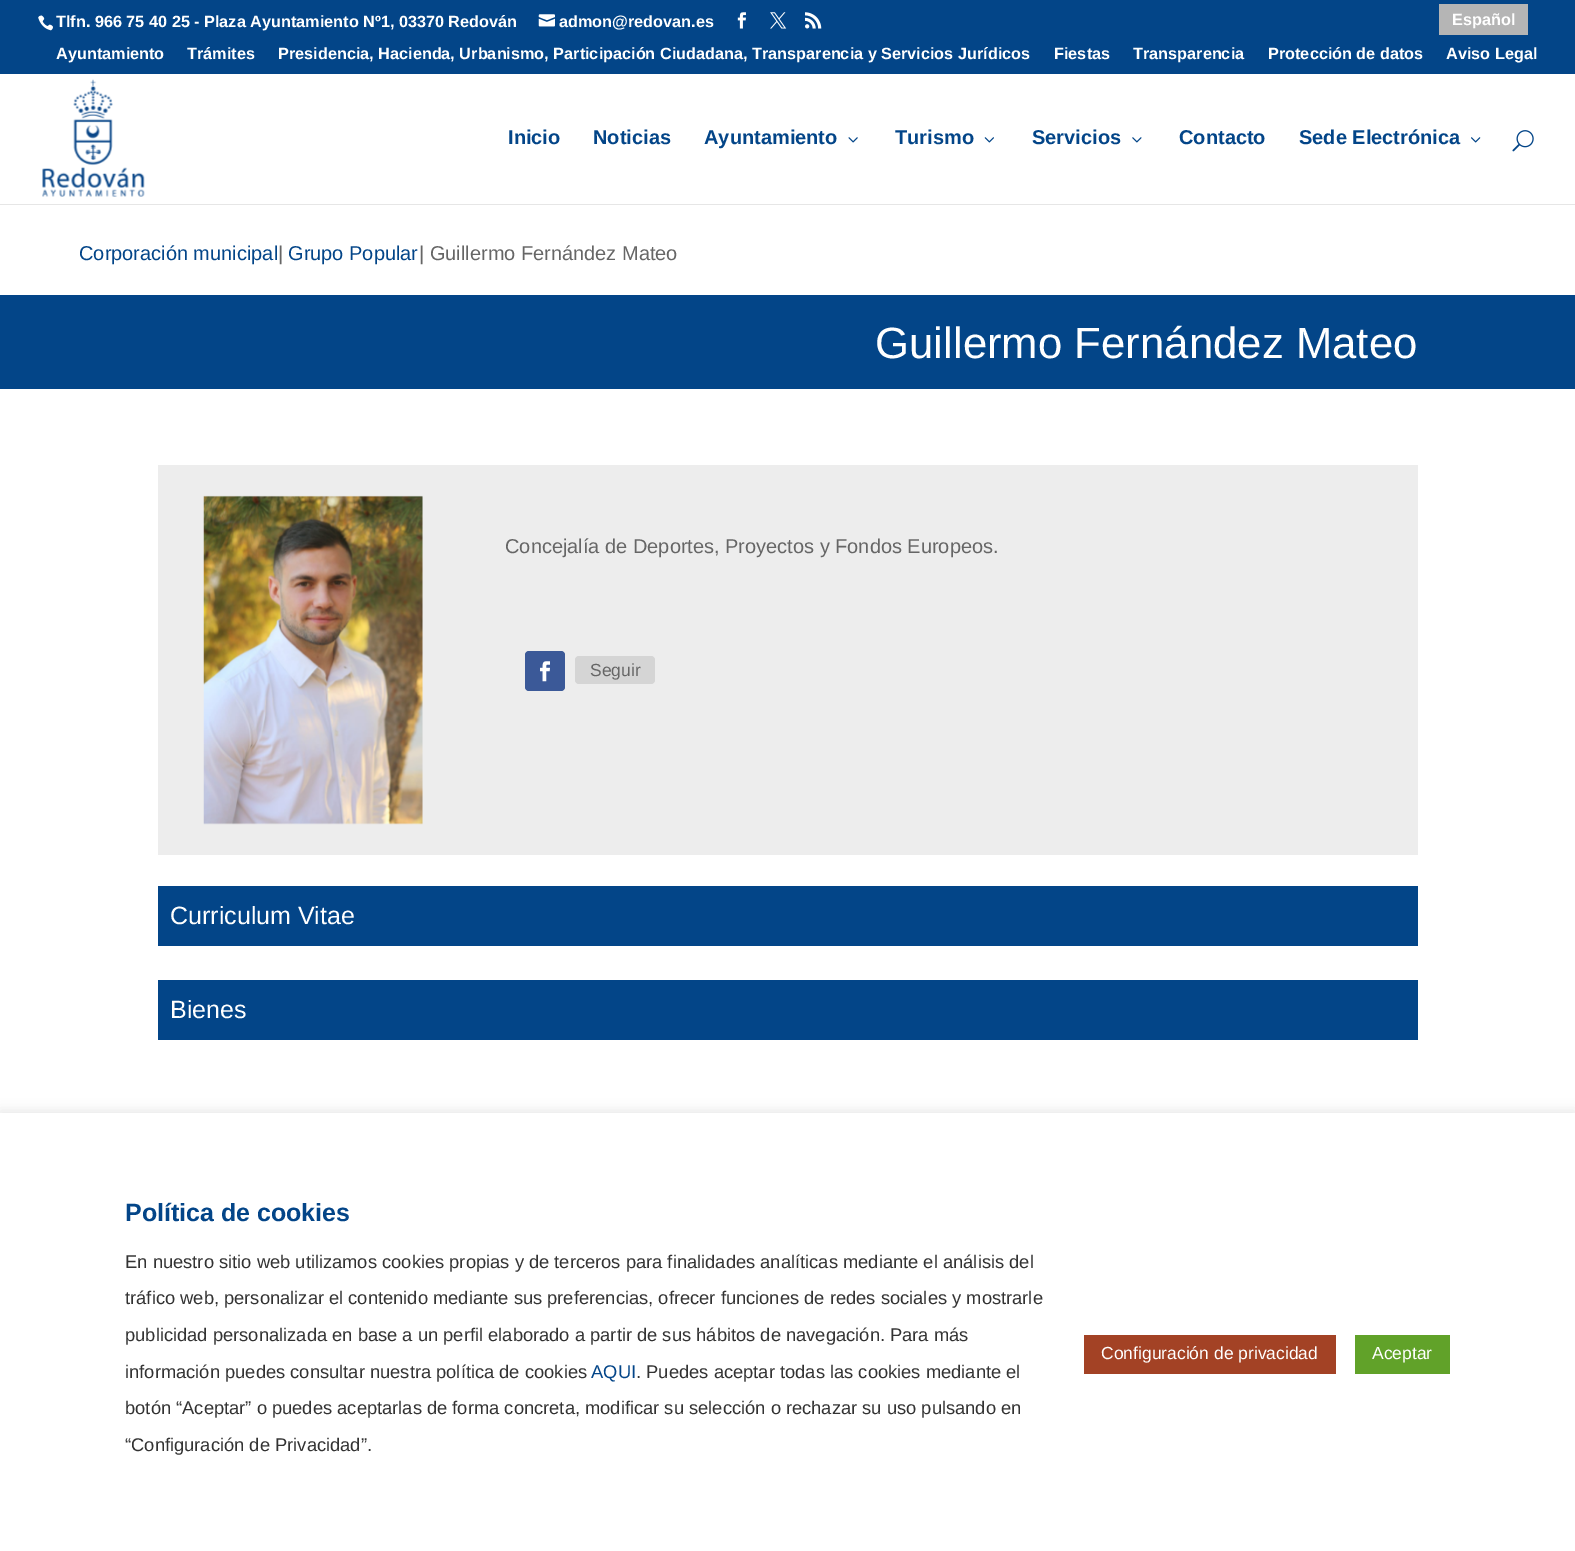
%!PS-Adobe-3.0
%%BoundingBox: 0 0 1575 1551
%%LanguageLevel: 3
%%Pages: 1
%%EndComments
%%BeginProlog
/setalpha { dup .setfillconstantalpha .setstrokeconstantalpha } def
/rrect { 5 dict begin { /r /h /w /y /x } { exch def } forall
  x r add y moveto x w add y 2 copy h add r arct x w add y h add x 1 index r arct
  x y h add x y r arct x y 2 copy exch w add exch r arct closepath end } def
/softshadow { 12 dict begin { /a /b /q /h /w /y /x } { exch def } forall gsave /was 0 def
  9 -2 -9 { dup b mul 4 div /e exch def 1 sub .425 mul 2.718 exch exp 1 add a .99 .min exch div /now exch def
    1 1 now sub 1 was sub div sub setalpha /was now def
    w h .min e 2 mul add 0 gt { x e sub y e sub w e 2 mul add h e 2 mul add
      q e add b .6 mul add w h .min 2 div e add .min 0 .max rrect fill } if } for grestore end } def
/drawimage { 5 dict begin { /h /w /y /x /name } { exch def } forall
  gsave x y translate w h scale
  w h 8 [w 0 0 h 0 0] name (r) file false 3 colorimage grestore end } def
%%EndProlog
%%BeginSetup
<< /PageSize [1575 1551] /PageUsesTransparency true >> setpagedevice
%%EndSetup
%%Page: 1 1
0 .pushpdf14devicefilter
0 1551 translate 1 -1 scale
4 setmiterlimit
1 setgray
0 0 1575 1551 rectfill
0.012 0.271 0.533 setrgbcolor
0 0 1575 74 rectfill
(images/1.raw) 38 15 15 16 drawimage
(images/2.raw) 538 14 17 13 drawimage
(images/3.raw) 737 12 9 17 drawimage
(images/4.raw) 770 12 17 17 drawimage
(images/5.raw) 805 12 17 17 drawimage
0.71 setgray
1439 4 89 31 rectfill
0.902 setgray
0 204 1575 1 rectfill
(images/6.raw) 42 79 103 118 drawimage
(images/7.raw) 848 137 10 6 drawimage
(images/8.raw) 984 137 10 6 drawimage
(images/9.raw) 1132 137 10 6 drawimage
(images/10.raw) 1471 137 10 6 drawimage
(images/11.raw) 1512 130 22 22 drawimage
0.012 0.271 0.533 setrgbcolor
0 295 1575 94 rectfill
0.929 setgray
158 465 1260 390 rectfill
(images/12.raw) 203 495 220 330 drawimage
0.231 0.349 0.596 setrgbcolor
525 651 40 40 4 rrect fill
(images/13.raw) 540 661 10 21 drawimage
0.835 setgray
575 656 80 28 4 rrect fill
0.012 0.271 0.533 setrgbcolor
158 886 1260 60 rectfill
158 980 1260 60 rectfill
0.675 0.671 0.671 setrgbcolor
0 1111 1575 439 0 6 0.3 softshadow
1 setgray
0 1113 1575 438 rectfill
0.639 0.259 0.145 setrgbcolor
1084 1335 252 39 rectfill
0.38 0.635 0.161 setrgbcolor
1355 1335 95 39 rectfill
/LiberationSans-Bold [16.25 0 0 -16.25 0 0] selectfont
1 setgray
56 27 moveto (Tlfn. 966 75 40 25 - Plaza Ayuntamiento Nº1, 03370 Redován) show
559 27 moveto (admon@redovan.es) show
1452 25 moveto (Español) show
56 59 moveto (Ayuntamiento) show
187 59 moveto (Trámites) show
278 59 moveto (Presidencia, Hacienda, Urbanismo, Participación Ciudadana, Transparencia y Servicios Jurídicos) show
1054 59 moveto (Fiestas) show
1133 59 moveto (Transparencia) show
1268 59 moveto (Protección de datos) show
1446 59 moveto (Aviso Legal) show
/LiberationSans-Bold [20 0 0 -20 0 0] selectfont
0.012 0.271 0.533 setrgbcolor
508 144 moveto (Inicio) show
593 144 moveto (Noticias) show
704 144 moveto (Ayuntamiento) show
895 144 moveto (Turismo) show
1032 144 moveto (Servicios) show
1179 144 moveto (Contacto) show
1299 144 moveto (Sede Electrónica) show
/LiberationSans-Regular [20 0 0 -20 0 0] selectfont
79 260 moveto (Corporación municipal) show
0.4 setgray
278 260 moveto (|) show
0.012 0.271 0.533 setrgbcolor
288 260 moveto (Grupo Popular) show
0.4 setgray
419 260 moveto (| Guillermo Fernández Mateo) show
/LiberationSans-Regular [43.75 0 0 -43.75 0 0] selectfont
1 setgray
875 358 moveto (Guillermo Fernández Mateo) show
/LiberationSans-Regular [20 0 0 -20 0 0] selectfont
0.4 setgray
505 553 moveto (Concejalía de Deportes, Proyectos y Fondos Europeos.) show
/LiberationSans-Regular [17.5 0 0 -17.5 0 0] selectfont
590 676 moveto (Seguir) show
/LiberationSans-Regular [25 0 0 -25 0 0] selectfont
1 setgray
170 924 moveto (Curriculum Vitae) show
170 1018 moveto (Bienes) show
/LiberationSans-Bold [25 0 0 -25 0 0] selectfont
0.012 0.271 0.533 setrgbcolor
125 1221 moveto (Política de cookies) show
/LiberationSans-Regular [18.35 0 0 -18.35 0 0] selectfont
0.2 setgray
125 1268 moveto (En nuestro sitio web utilizamos cookies propias y de terceros para finalidades analíticas mediante el análisis del) show
125 1304 moveto (tráfico web, personalizar el contenido mediante sus preferencias, ofrecer funciones de redes sociales y mostrarle) show
125 1341 moveto (publicidad personalizada en base a un perfil elaborado a partir de sus hábitos de navegación. Para más) show
125 1378 moveto (información puedes consultar nuestra política de cookies) show
0.012 0.271 0.533 setrgbcolor
591 1378 moveto (AQUI) show
0.2 setgray
636 1378 moveto (. Puedes aceptar todas las cookies mediante el) show
125 1414 moveto (botón “Aceptar” o puedes aceptarlas de forma concreta, modificar su selección o rechazar su uso pulsando en) show
125 1451 moveto (“Configuración de Privacidad”.) show
/LiberationSans-Regular [17.5 0 0 -17.5 0 0] selectfont
1 setgray
1101 1359 moveto (Configuración de privacidad) show
1372 1359 moveto (Aceptar) show
.poppdf14devicefilter showpage
%%EOF
